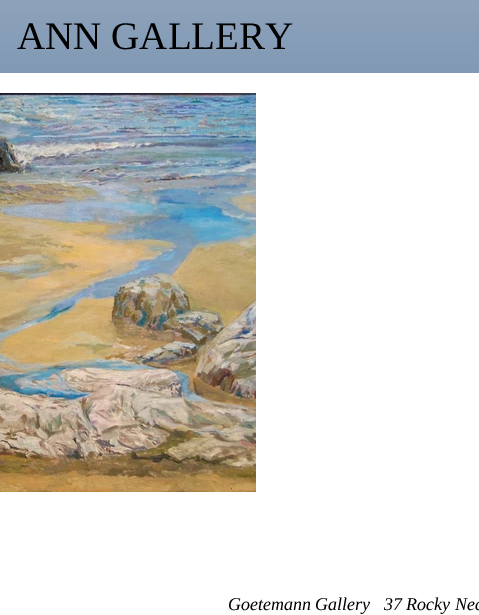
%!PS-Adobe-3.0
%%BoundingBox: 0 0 479 615
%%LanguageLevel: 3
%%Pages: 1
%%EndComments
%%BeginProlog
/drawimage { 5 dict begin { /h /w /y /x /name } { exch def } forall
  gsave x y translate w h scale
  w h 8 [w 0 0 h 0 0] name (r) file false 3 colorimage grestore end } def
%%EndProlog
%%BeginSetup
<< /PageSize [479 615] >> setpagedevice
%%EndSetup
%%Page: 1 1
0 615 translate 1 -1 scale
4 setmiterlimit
1 setgray
0 0 479 615 rectfill
0.396 0.51 0.639 setrgbcolor
0 0 479 73 rectfill
(images/1.raw) 0 0 479 73 drawimage
(images/2.raw) 0 93 256 399 drawimage
/LiberationSerif-Regular [39 0 0 -39 0 0] selectfont
0 setgray
17 49 moveto (ANN GALLERY) show
/LiberationSerif-Italic [18 0 0 -18 0 0] selectfont
228 610 moveto (Goetemann Gallery   37 Rocky Nec) show
showpage
%%EOF
